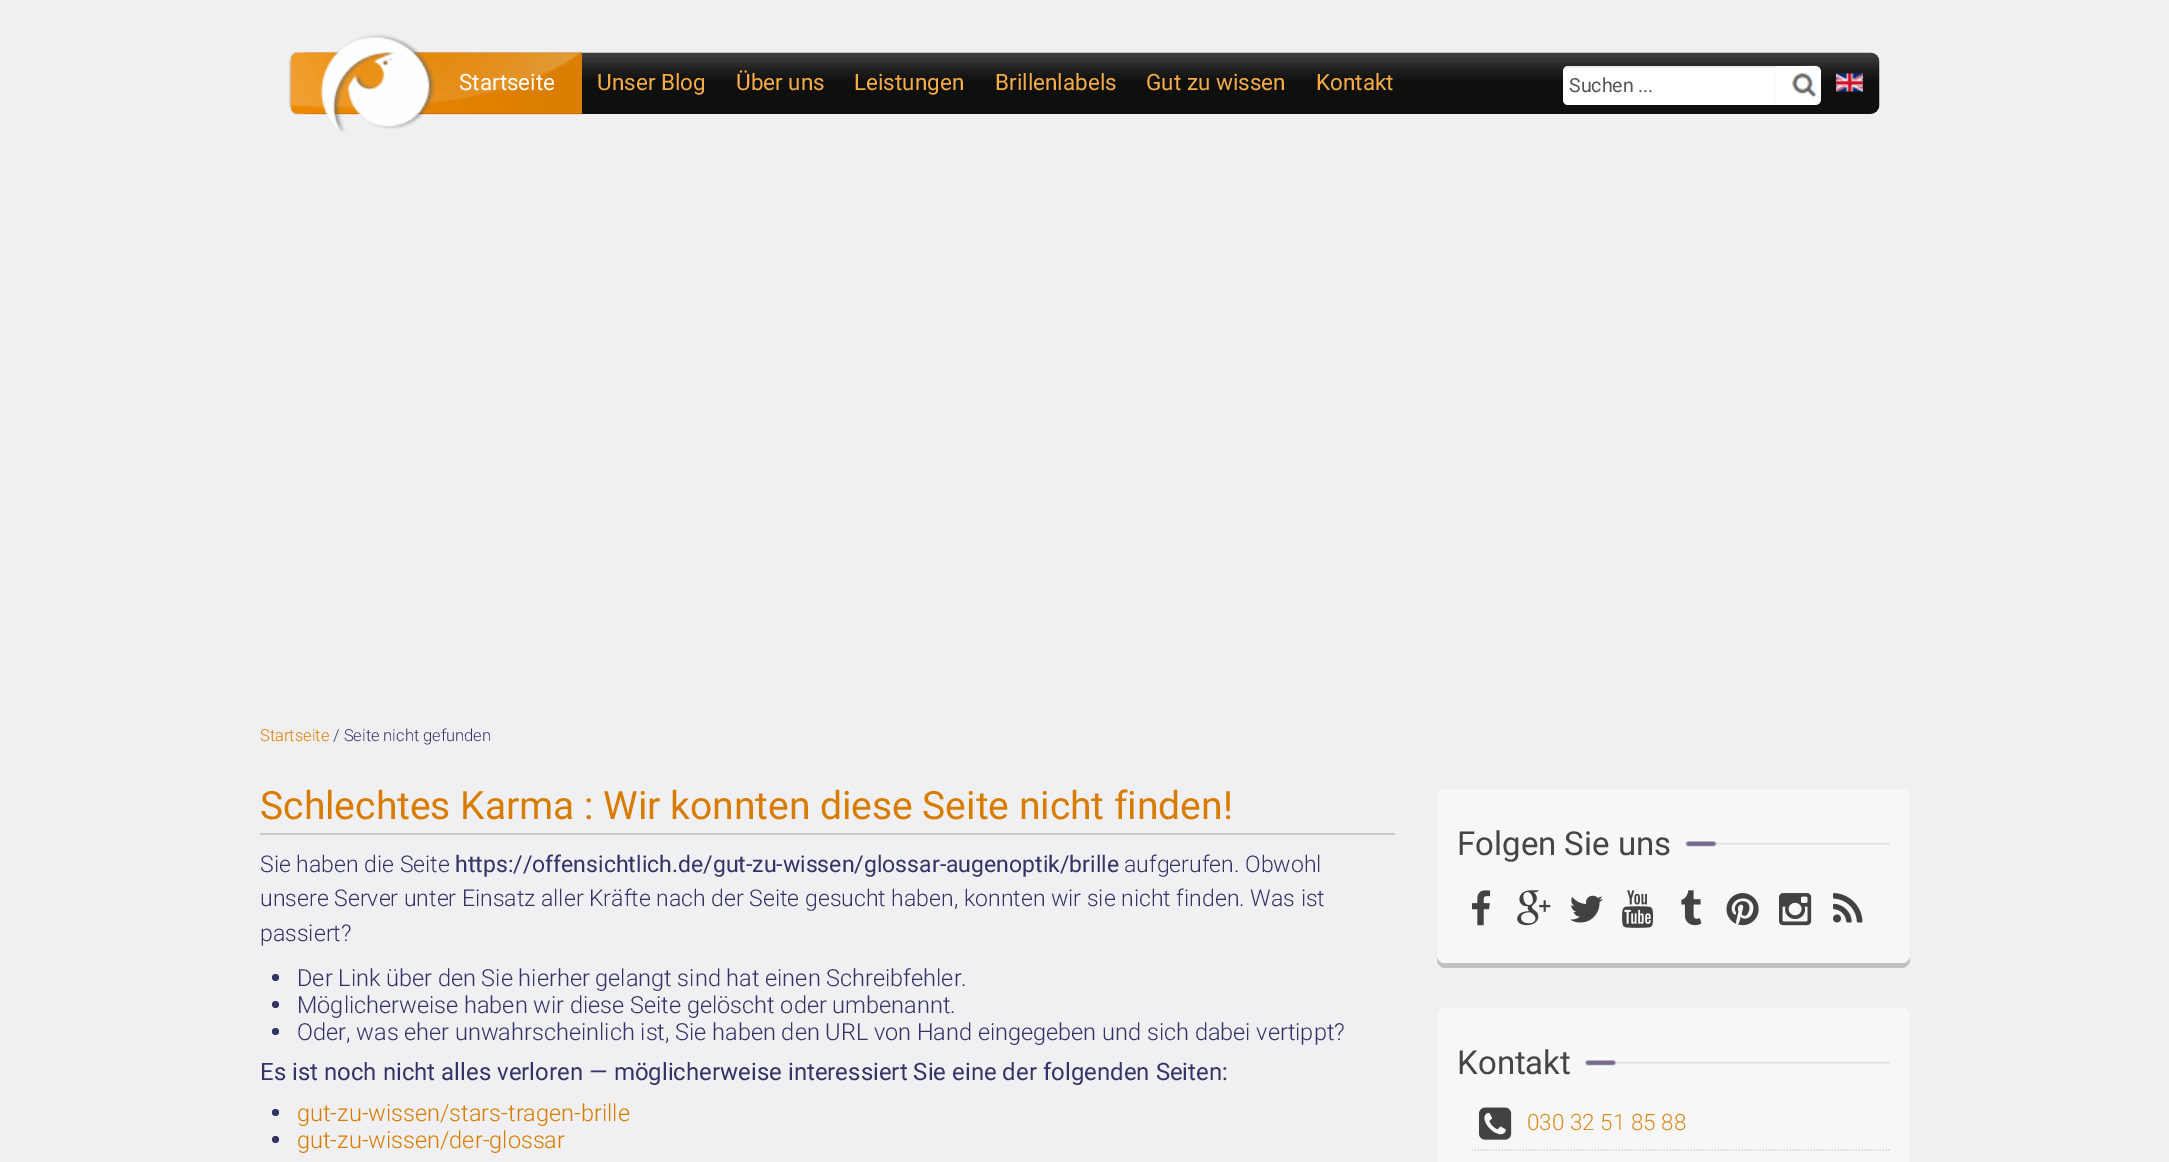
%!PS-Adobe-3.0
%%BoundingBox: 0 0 2169 1162
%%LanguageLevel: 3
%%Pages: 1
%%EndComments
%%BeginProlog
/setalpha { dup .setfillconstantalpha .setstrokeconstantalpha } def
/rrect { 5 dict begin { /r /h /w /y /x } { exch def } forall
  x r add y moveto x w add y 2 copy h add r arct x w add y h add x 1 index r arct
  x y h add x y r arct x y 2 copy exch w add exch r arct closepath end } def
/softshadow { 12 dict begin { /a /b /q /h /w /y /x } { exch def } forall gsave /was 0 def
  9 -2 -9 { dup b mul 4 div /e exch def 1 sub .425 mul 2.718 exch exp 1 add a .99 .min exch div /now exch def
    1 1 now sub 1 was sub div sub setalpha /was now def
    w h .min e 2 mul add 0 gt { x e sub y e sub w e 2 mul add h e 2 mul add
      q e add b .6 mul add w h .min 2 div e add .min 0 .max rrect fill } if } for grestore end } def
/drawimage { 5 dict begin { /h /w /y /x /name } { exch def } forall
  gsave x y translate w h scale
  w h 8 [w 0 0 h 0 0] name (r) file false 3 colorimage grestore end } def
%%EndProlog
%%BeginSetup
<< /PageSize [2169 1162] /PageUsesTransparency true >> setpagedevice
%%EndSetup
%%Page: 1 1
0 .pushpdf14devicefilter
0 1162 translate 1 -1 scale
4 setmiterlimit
0.941 0.941 0.949 setrgbcolor
0 0 2169 1162 rectfill
(images/2.raw) 304 52 1576 62 drawimage
(images/1.raw) 289 34 293 98 drawimage
1 setgray
1563 66 228 39 5 rrect fill
0.07 setalpha
0 setgray
newpath 1568 68 moveto 1786 68 lineto 1789 68 1791 70 1791 72 curveto 1791 71 lineto 1791 68 1789 66 1786 66 curveto 1568 66 lineto 1565 66 1563 68 1563 71 curveto 1563 72 lineto 1563 70 1565 68 1568 68 curveto closepath fill
1 setalpha
1776 68 45 39 6 1.5 0.05 softshadow
1 setgray
newpath 1776 66 moveto 1815 66 lineto 1818.5 66 1821 68.5 1821 72 curveto 1821 99 lineto 1821 102.5 1818.5 105 1815 105 curveto 1776 105 lineto closepath fill
(images/3.raw) 1792 73 25 25 drawimage
0.2 setalpha
newpath 1776 68 moveto 1815 68 lineto 1818 68 1821 70 1821 74 curveto 1821 63 1811 66 1802 66 curveto 1776 66 lineto closepath fill
1 setalpha
(images/4.raw) 1836 73 27 19 drawimage
0.796 0.796 0.8 setrgbcolor
260 833 1135 2 rectfill
0.2 0.2 0.4 setrgbcolor
newpath 275.5 977.5 3.5 0 360 arc closepath fill
newpath 275.5 1004.5 3.5 0 360 arc closepath fill
newpath 275.5 1031.5 3.5 0 360 arc closepath fill
newpath 275.5 1112.5 3.5 0 360 arc closepath fill
newpath 275.5 1139.5 3.5 0 360 arc closepath fill
0.761 0.757 0.749 setrgbcolor
newpath 1437 956 moveto 1437 960 lineto 1437 964 1441 968 1445 968 curveto 1902 968 lineto 1906 968 1910 964 1910 960 curveto 1910 802 lineto 1910 799 lineto 1910 956 lineto 1910 960 1906 963 1902 963 curveto 1444 963 lineto 1440 963 1437 960 1437 956 curveto closepath fill
0.969 setgray
1437 789 473 174 8 rrect fill
(images/5.raw) 1685 841 205 6 drawimage
(images/6.raw) 1472 890 19 36 drawimage
(images/7.raw) 1517 890 34 36 drawimage
(images/8.raw) 1570 895 33 28 drawimage
(images/9.raw) 1622 890 32 38 drawimage
(images/10.raw) 1681 890 21 36 drawimage
(images/11.raw) 1726 893 33 33 drawimage
(images/12.raw) 1779 893 33 33 drawimage
(images/13.raw) 1833 893 30 30 drawimage
1437 1008 473 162 8 rrect fill
(images/14.raw) 1585 1060 305 6 drawimage
0.855 0.851 0.851 setrgbcolor
1.5 setlinewidth
[1.5 1.5] 0 setdash
newpath 1471.5 1150 moveto 1890 1150 lineto stroke
(images/15.raw) 1479 1107 33 33 drawimage
/Roboto-Regular [22.5 0 0 -22.5 0 0] selectfont
1 setgray
459 90 moveto (Startseite) show
0.957 0.671 0.282 setrgbcolor
597 90 moveto (Unser Blog) show
736 90 moveto (Über uns) show
854 90 moveto (Leistungen) show
995 90 moveto (Brillenlabels) show
1146 90 moveto (Gut zu wissen) show
1316 90 moveto (Kontakt) show
/Roboto-Regular [19.5 0 0 -19.5 0 0] selectfont
0.333 setgray
1569 92 moveto (Suchen ...) show
/Roboto-Light [16.5 0 0 -16.5 0 0] selectfont
0.847 0.486 0 setrgbcolor
260 741 moveto (Startseite) show
0.2 0.2 0.4 setrgbcolor
333 741 moveto (/ Seite nicht gefunden) show
/Roboto-Regular [39 0 0 -39 0 0] selectfont
0.847 0.486 0 setrgbcolor
260 819 moveto (Schlechtes Karma : Wir konnten diese Seite nicht finden!) show
/Roboto-Light [23.05 0 0 -23.05 0 0] selectfont
0.2 0.2 0.4 setrgbcolor
260 872 moveto (Sie haben die Seite) show
/Roboto-Regular [23.05 0 0 -23.05 0 0] selectfont
455 872 moveto (https://offensichtlich.de/gut-zu-wissen/glossar-augenoptik/brille) show
/Roboto-Light [23.05 0 0 -23.05 0 0] selectfont
1124 872 moveto (aufgerufen. Obwohl) show
260 906 moveto (unsere Server unter Einsatz aller Kräfte nach der Seite gesucht haben, konnten wir sie nicht finden. Was ist) show
260 941 moveto (passiert?) show
/Roboto-Light [23.5 0 0 -23.5 0 0] selectfont
297 986 moveto (Der Link über den Sie hierher gelangt sind hat einen Schreibfehler.) show
297 1013 moveto (Möglicherweise haben wir diese Seite gelöscht oder umbenannt.) show
297 1040 moveto (Oder, was eher unwahrscheinlich ist, Sie haben den URL von Hand eingegeben und sich dabei vertippt?) show
/Roboto-Regular [24 0 0 -24 0 0] selectfont
260 1080 moveto (Es ist noch nicht alles verloren — möglicherweise interessiert Sie eine der folgenden Seiten:) show
/Roboto-Light [23.5 0 0 -23.5 0 0] selectfont
0.847 0.486 0 setrgbcolor
297 1121 moveto (gut-zu-wissen/stars-tragen-brille) show
297 1148 moveto (gut-zu-wissen/der-glossar) show
/Roboto-Regular [33 0 0 -33 0 0] selectfont
0.271 setgray
1457 855 moveto (Folgen Sie uns) show
1457 1074 moveto (Kontakt) show
/Roboto-Light [22.5 0 0 -22.5 0 0] selectfont
0.855 0.545 0.122 setrgbcolor
1527 1130 moveto (030 32 51 85 88) show
.poppdf14devicefilter showpage
%%EOF
